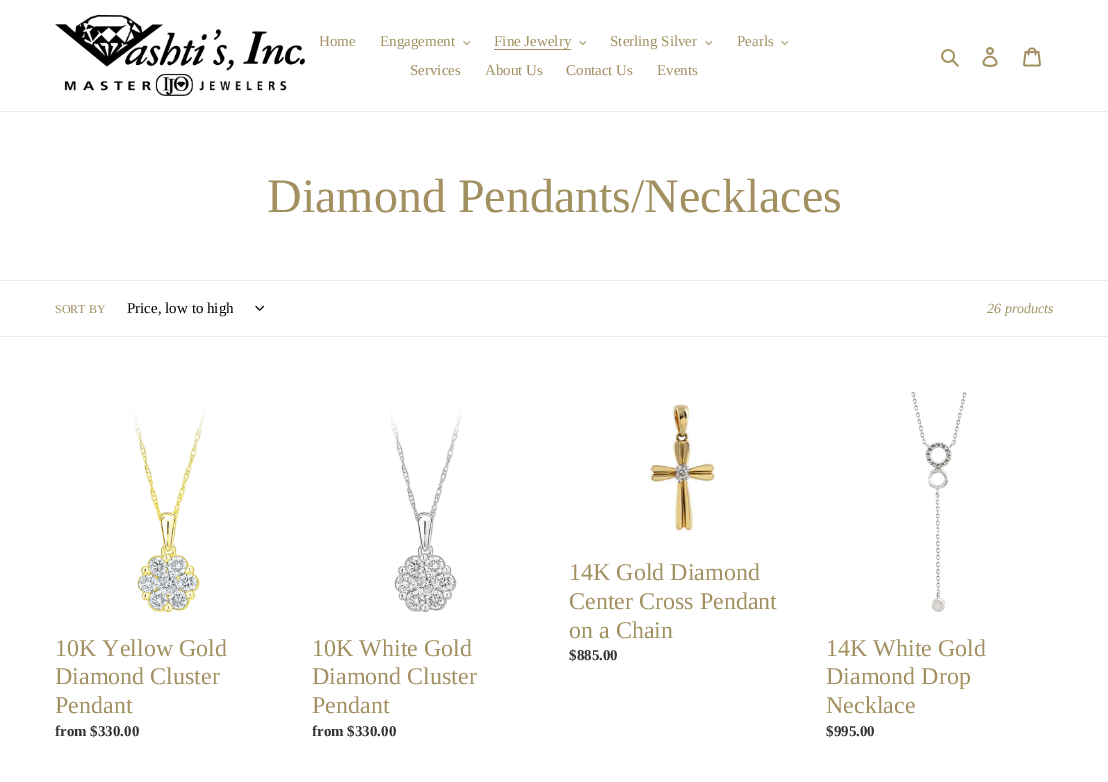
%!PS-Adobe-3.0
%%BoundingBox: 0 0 1108 782
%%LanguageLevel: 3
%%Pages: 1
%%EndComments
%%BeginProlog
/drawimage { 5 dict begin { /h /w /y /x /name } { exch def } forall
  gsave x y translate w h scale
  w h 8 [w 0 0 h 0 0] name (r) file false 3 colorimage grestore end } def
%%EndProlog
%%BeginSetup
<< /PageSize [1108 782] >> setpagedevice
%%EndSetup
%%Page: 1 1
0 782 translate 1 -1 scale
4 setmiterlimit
1 setgray
0 0 1108 782 rectfill
0.922 setgray
0 111 1108 1 rectfill
(images/1.raw) 55 15 250 81 drawimage
(images/2.raw) 463 41 7 4 drawimage
0.635 0.565 0.38 setrgbcolor
494 49 77 1 rectfill
(images/2.raw) 579 41 7 4 drawimage
(images/3.raw) 705 41 8 4 drawimage
(images/3.raw) 781 41 8 4 drawimage
(images/4.raw) 941 49 18 18 drawimage
(images/5.raw) 982 47 16 20 drawimage
(images/6.raw) 1023 47 18 20 drawimage
0.922 setgray
0 280 1108 1 rectfill
0 336 1108 1 rectfill
(images/7.raw) 255 305 9 6 drawimage
(images/8.raw) 649 404 66 129 drawimage
(images/9.raw) 131 406 76 207 drawimage
(images/10.raw) 390 408 73 205 drawimage
(images/11.raw) 911 392 56 220 drawimage
/LiberationSerif-Regular [15 0 0 -15 0 0] selectfont
0.635 0.565 0.38 setrgbcolor
319 46 moveto (Home) show
380 46 moveto (Engagement) show
494 46 moveto (Fine Jewelry) show
610 46 moveto (Sterling Silver) show
737 46 moveto (Pearls) show
410 75 moveto (Services) show
485 75 moveto (About Us) show
566 75 moveto (Contact Us) show
657 75 moveto (Events) show
/LiberationSerif-Regular [48 0 0 -48 0 0] selectfont
267 212 moveto (Diamond Pendants/Necklaces) show
/LiberationSerif-Regular [12 0 0 -12 0 0] selectfont
55 313 moveto (SORT BY) show
/LiberationSerif-Regular [15 0 0 -15 0 0] selectfont
0 setgray
127 313 moveto (Price, low to high) show
/LiberationSerif-Italic [14 0 0 -14 0 0] selectfont
0.635 0.565 0.38 setrgbcolor
987 313 moveto (26 products) show
/LiberationSerif-Regular [24 0 0 -24 0 0] selectfont
569 580 moveto (14K Gold Diamond) show
569 609 moveto (Center Cross Pendant) show
569 638 moveto (on a Chain) show
/LiberationSerif-Bold [15 0 0 -15 0 0] selectfont
0.2 0.196 0.196 setrgbcolor
569 660 moveto ($885.00) show
/LiberationSerif-Regular [24 0 0 -24 0 0] selectfont
0.635 0.565 0.38 setrgbcolor
55 656 moveto (10K Yellow Gold) show
55 684 moveto (Diamond Cluster) show
55 713 moveto (Pendant) show
/LiberationSerif-Bold [15 0 0 -15 0 0] selectfont
0.2 0.196 0.196 setrgbcolor
55 736 moveto (from $330.00) show
/LiberationSerif-Regular [24 0 0 -24 0 0] selectfont
0.635 0.565 0.38 setrgbcolor
312 656 moveto (10K White Gold) show
312 684 moveto (Diamond Cluster) show
312 713 moveto (Pendant) show
/LiberationSerif-Bold [15 0 0 -15 0 0] selectfont
0.2 0.196 0.196 setrgbcolor
312 736 moveto (from $330.00) show
/LiberationSerif-Regular [24 0 0 -24 0 0] selectfont
0.635 0.565 0.38 setrgbcolor
826 656 moveto (14K White Gold) show
826 684 moveto (Diamond Drop) show
826 713 moveto (Necklace) show
/LiberationSerif-Bold [15 0 0 -15 0 0] selectfont
0.2 0.196 0.196 setrgbcolor
826 736 moveto ($995.00) show
showpage
%%EOF
